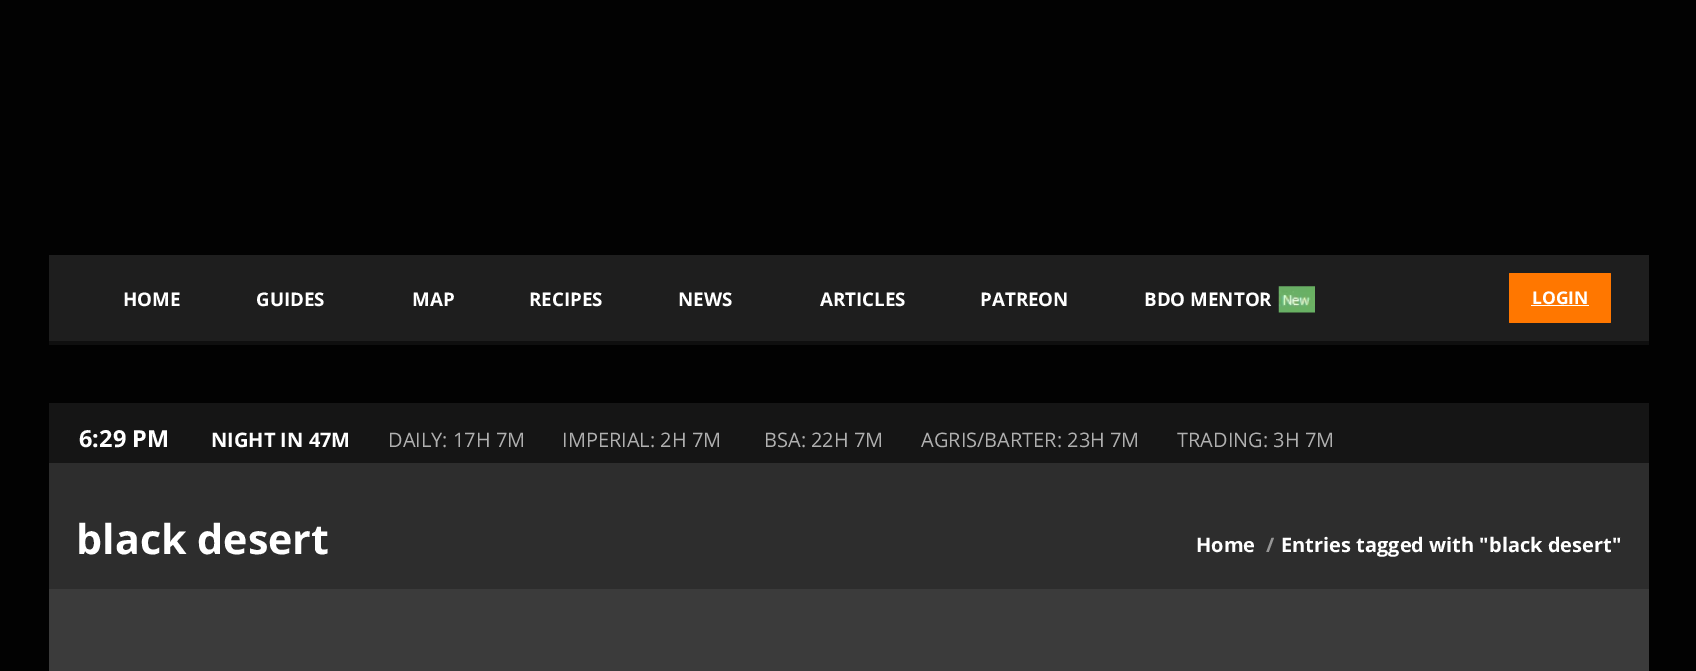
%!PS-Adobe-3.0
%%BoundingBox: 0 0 1696 671
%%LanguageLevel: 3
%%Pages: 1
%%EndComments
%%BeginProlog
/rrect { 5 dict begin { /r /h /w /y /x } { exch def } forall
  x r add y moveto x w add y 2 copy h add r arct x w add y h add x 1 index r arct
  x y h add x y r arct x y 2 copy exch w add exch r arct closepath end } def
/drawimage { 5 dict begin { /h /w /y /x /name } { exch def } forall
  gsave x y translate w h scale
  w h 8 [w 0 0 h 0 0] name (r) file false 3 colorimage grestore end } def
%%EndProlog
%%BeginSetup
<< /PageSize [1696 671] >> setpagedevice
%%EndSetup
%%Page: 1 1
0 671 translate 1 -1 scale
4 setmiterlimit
0.008 setgray
0 0 1696 671 rectfill
0.118 setgray
49 255 1600 86 rectfill
0.059 setgray
49 341 1600 4 rectfill
(images/1.raw) 1278 286 37 27 drawimage
1 0.467 0 setrgbcolor
1509 273 102 50 1 rrect fill
1 setgray
1531 305 58 1 rectfill
0.082 setgray
49 403 1600 60 rectfill
0.176 setgray
49 463 1600 126 rectfill
0.231 setgray
49 589 1600 82 rectfill
/OpenSans-Bold [18.75 0 0 -18.75 0 0] selectfont
1 setgray
123 306 moveto (HOME) show
256 306 moveto (GUIDES) show
412 306 moveto (MAP) show
529 306 moveto (RECIPES) show
678 306 moveto (NEWS) show
820 306 moveto (ARTICLES) show
980 306 moveto (PATREON) show
1144 306 moveto (BDO MENTOR) show
/OpenSans-Bold [17.5 0 0 -17.5 0 0] selectfont
1532 304 moveto (LOGIN) show
/OpenSans-Bold [23.5 0 0 -23.5 0 0] selectfont
79 447 moveto (6:29 PM) show
/OpenSans-Bold [20 0 0 -20 0 0] selectfont
211 447 moveto (NIGHT IN 47M) show
/OpenSans-Regular [20 0 0 -20 0 0] selectfont
0.69 setgray
388 447 moveto (DAILY: 17H 7M) show
562 447 moveto (IMPERIAL: 2H 7M) show
764 447 moveto (BSA: 22H 7M) show
921 447 moveto (AGRIS/BARTER: 23H 7M) show
1177 447 moveto (TRADING: 3H 7M) show
/OpenSans-Bold [41.25 0 0 -41.25 0 0] selectfont
1 setgray
76 554 moveto (black desert) show
/OpenSans-Bold [20 0 0 -20 0 0] selectfont
1196 552 moveto (Home) show
0.588 setgray
1266 552 moveto (/) show
1 setgray
1281 552 moveto (Entries tagged with "black desert") show
showpage
%%EOF
